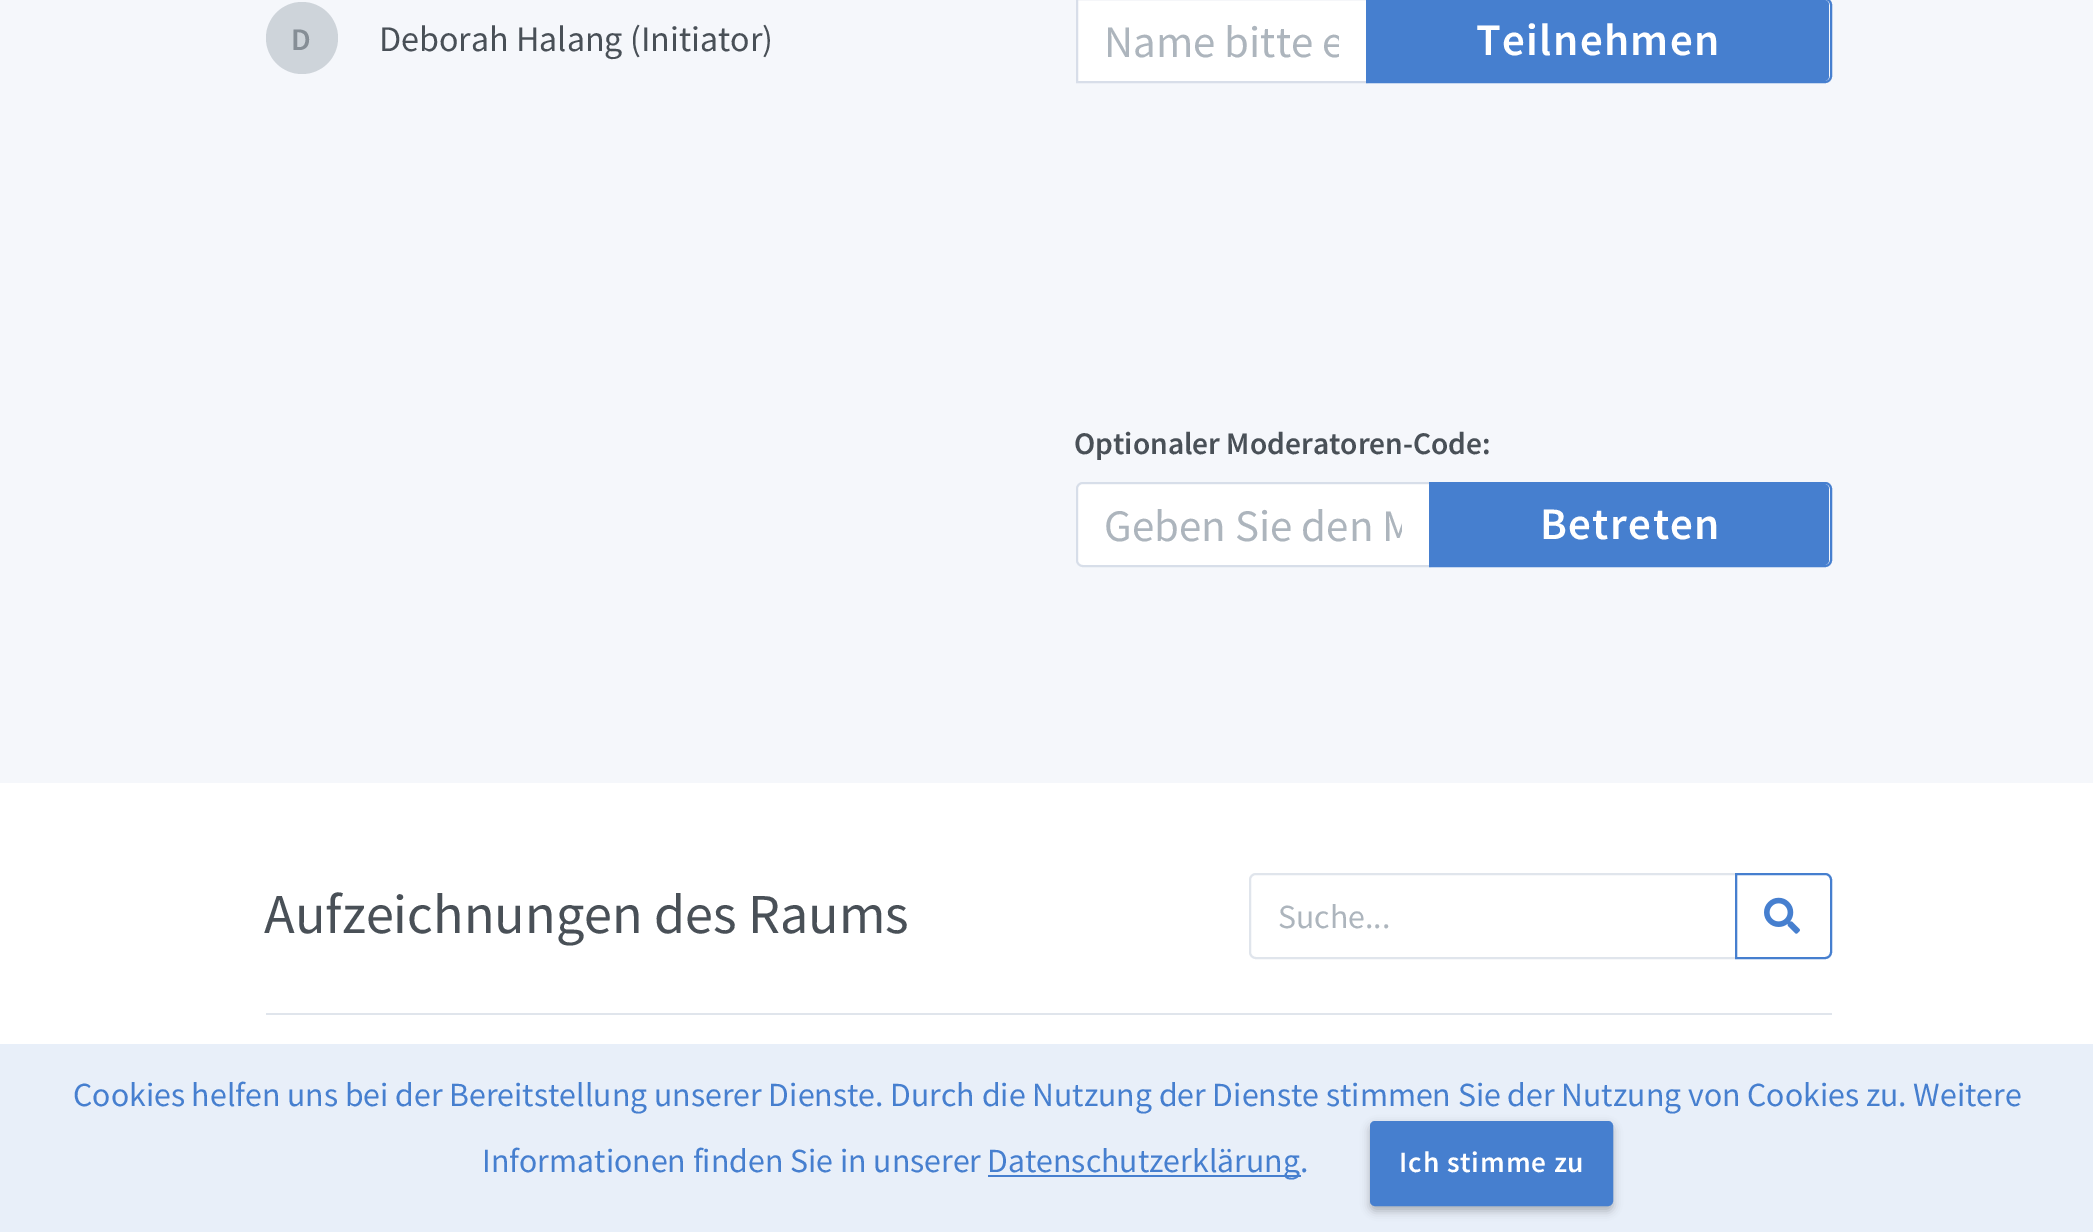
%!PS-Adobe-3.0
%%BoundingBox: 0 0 2093 1232
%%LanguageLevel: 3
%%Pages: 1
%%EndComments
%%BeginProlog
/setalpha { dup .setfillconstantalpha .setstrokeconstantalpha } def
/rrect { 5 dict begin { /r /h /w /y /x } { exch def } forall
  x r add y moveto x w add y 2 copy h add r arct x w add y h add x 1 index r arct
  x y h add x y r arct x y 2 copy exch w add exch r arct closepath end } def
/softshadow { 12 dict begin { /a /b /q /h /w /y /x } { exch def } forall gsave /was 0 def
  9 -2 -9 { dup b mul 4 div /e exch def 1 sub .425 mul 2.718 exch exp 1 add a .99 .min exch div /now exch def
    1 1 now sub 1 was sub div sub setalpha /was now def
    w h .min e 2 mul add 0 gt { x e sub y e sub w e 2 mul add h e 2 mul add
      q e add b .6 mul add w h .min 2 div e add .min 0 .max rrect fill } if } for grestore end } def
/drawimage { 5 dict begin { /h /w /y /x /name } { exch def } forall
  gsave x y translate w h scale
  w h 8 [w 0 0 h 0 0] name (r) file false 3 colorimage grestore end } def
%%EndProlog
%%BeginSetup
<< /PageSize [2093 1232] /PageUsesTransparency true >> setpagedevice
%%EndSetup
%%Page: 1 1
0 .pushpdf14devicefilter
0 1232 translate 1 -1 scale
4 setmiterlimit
1 setgray
0 0 2093 1232 rectfill
0.961 0.969 0.984 setrgbcolor
0 0 2093 783 rectfill
0.808 0.831 0.855 setrgbcolor
newpath 302 38 36 0 360 arc closepath fill
1 setgray
newpath 1077 -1 moveto 1367 -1 lineto 1367 82 lineto 1077 82 lineto closepath gsave fill grestore
0.847 0.871 0.914 setrgbcolor
2 setlinewidth
stroke
0.275 0.498 0.812 setrgbcolor
newpath 1368 0 moveto 1824 0 lineto 1827 0 1829 2 1829 5 curveto 1829 76 lineto 1829 79 1827 81 1824 81 curveto 1368 81 lineto closepath fill
newpath 1367 -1 moveto 1825 -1 lineto 1828.5 -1 1831 1.5 1831 5 curveto 1831 76 lineto 1831 79.5 1828.5 82 1825 82 curveto 1367 82 lineto closepath stroke
1 setgray
newpath 1083 484 moveto 1429 484 lineto 1429 565 lineto 1083 565 lineto 1080 565 1078 563 1078 560 curveto 1078 489 lineto 1078 486 1080 484 1083 484 curveto closepath fill
0.12 setalpha
0 0.157 0.392 setrgbcolor
newpath 1083 483 moveto 1430 483 lineto 1430 566 lineto 1083 566 lineto 1079.5 566 1077 563.5 1077 560 curveto 1077 489 lineto 1077 485.5 1079.5 483 1083 483 curveto closepath stroke
1 setalpha
0.275 0.498 0.812 setrgbcolor
newpath 1431 484 moveto 1824 484 lineto 1827 484 1829 486 1829 489 curveto 1829 560 lineto 1829 563 1827 565 1824 565 curveto 1431 565 lineto closepath fill
newpath 1430 483 moveto 1825 483 lineto 1828.5 483 1831 485.5 1831 489 curveto 1831 560 lineto 1831 563.5 1828.5 566 1825 566 curveto 1430 566 lineto closepath stroke
0.878 0.898 0.925 setrgbcolor
newpath 1256 874 moveto 1736 874 lineto 1736 958 lineto 1256 958 lineto 1252.5 958 1250 955.5 1250 952 curveto 1250 880 lineto 1250 876.5 1252.5 874 1256 874 curveto closepath stroke
0.275 0.498 0.812 setrgbcolor
newpath 1736 874 moveto 1825 874 lineto 1828.5 874 1831 876.5 1831 880 curveto 1831 952 lineto 1831 955.5 1828.5 958 1825 958 curveto 1736 958 lineto closepath stroke
(images/1.raw) 1764 897 36 37 drawimage
0.878 0.898 0.925 setrgbcolor
266 1013 1566 2 rectfill
0.91 0.937 0.976 setrgbcolor
0 1044 2093 188 rectfill
0.275 0.498 0.812 setrgbcolor
988 1175 313 2 rectfill
0 setgray
1370 1125 243 86 5 4.5 0.25 softshadow
0.275 0.498 0.812 setrgbcolor
1371 1122 241 83 4 rrect gsave fill grestore
stroke
/SourceSansPro-SemiBold [31.5 0 0 -31.5 0 0] selectfont
0.525 0.557 0.588 setrgbcolor
291 50 moveto (D) show
/SourceSansPro-Regular [36 0 0 -36 0 0] selectfont
0.286 0.314 0.341 setrgbcolor
379 51 moveto (Deborah Halang \(Initiator\)) show
gsave
1105 11 234 57 rectclip
/SourceSansPro-Regular [45 0 0 -45 0 0] selectfont
0.678 0.71 0.741 setrgbcolor
1104 57 moveto (Name bitte e) show
grestore
/SourceSansPro-SemiBold [45 0 0 -45 0 0] selectfont
1 setgray
1476 55 moveto 1.4 0 (Teilnehmen) ashow
/SourceSansPro-SemiBold [31.5 0 0 -31.5 0 0] selectfont
0.286 0.314 0.341 setrgbcolor
1074 454 moveto (Optionaler Moderatoren-Code:) show
gsave
1105 495 297 56 rectclip
/SourceSansPro-Regular [45 0 0 -45 0 0] selectfont
0.678 0.71 0.741 setrgbcolor
1104 541 moveto (Geben Sie den M) show
grestore
/SourceSansPro-SemiBold [45 0 0 -45 0 0] selectfont
1 setgray
1540 539 moveto 1.4 0 (Betreten) ashow
/SourceSansPro-Regular [56.25 0 0 -56.25 0 0] selectfont
0.286 0.314 0.341 setrgbcolor
264 933 moveto (Aufzeichnungen des Raums) show
/SourceSansPro-Regular [33.75 0 0 -33.75 0 0] selectfont
0.678 0.71 0.741 setrgbcolor
1278 928 moveto (Suche...) show
0.275 0.498 0.812 setrgbcolor
73 1106 moveto (Cookies helfen uns bei der Bereitstellung unserer Dienste. Durch die Nutzung der Dienste stimmen Sie der Nutzung von Cookies zu. Weitere) show
482 1172 moveto (Informationen finden Sie in unserer) show
987 1172 moveto (Datenschutzerklärung.) show
/SourceSansPro-SemiBold [29.25 0 0 -29.25 0 0] selectfont
1 setgray
1399 1172 moveto 0.9 0 (Ich stimme zu) ashow
.poppdf14devicefilter showpage
%%EOF
